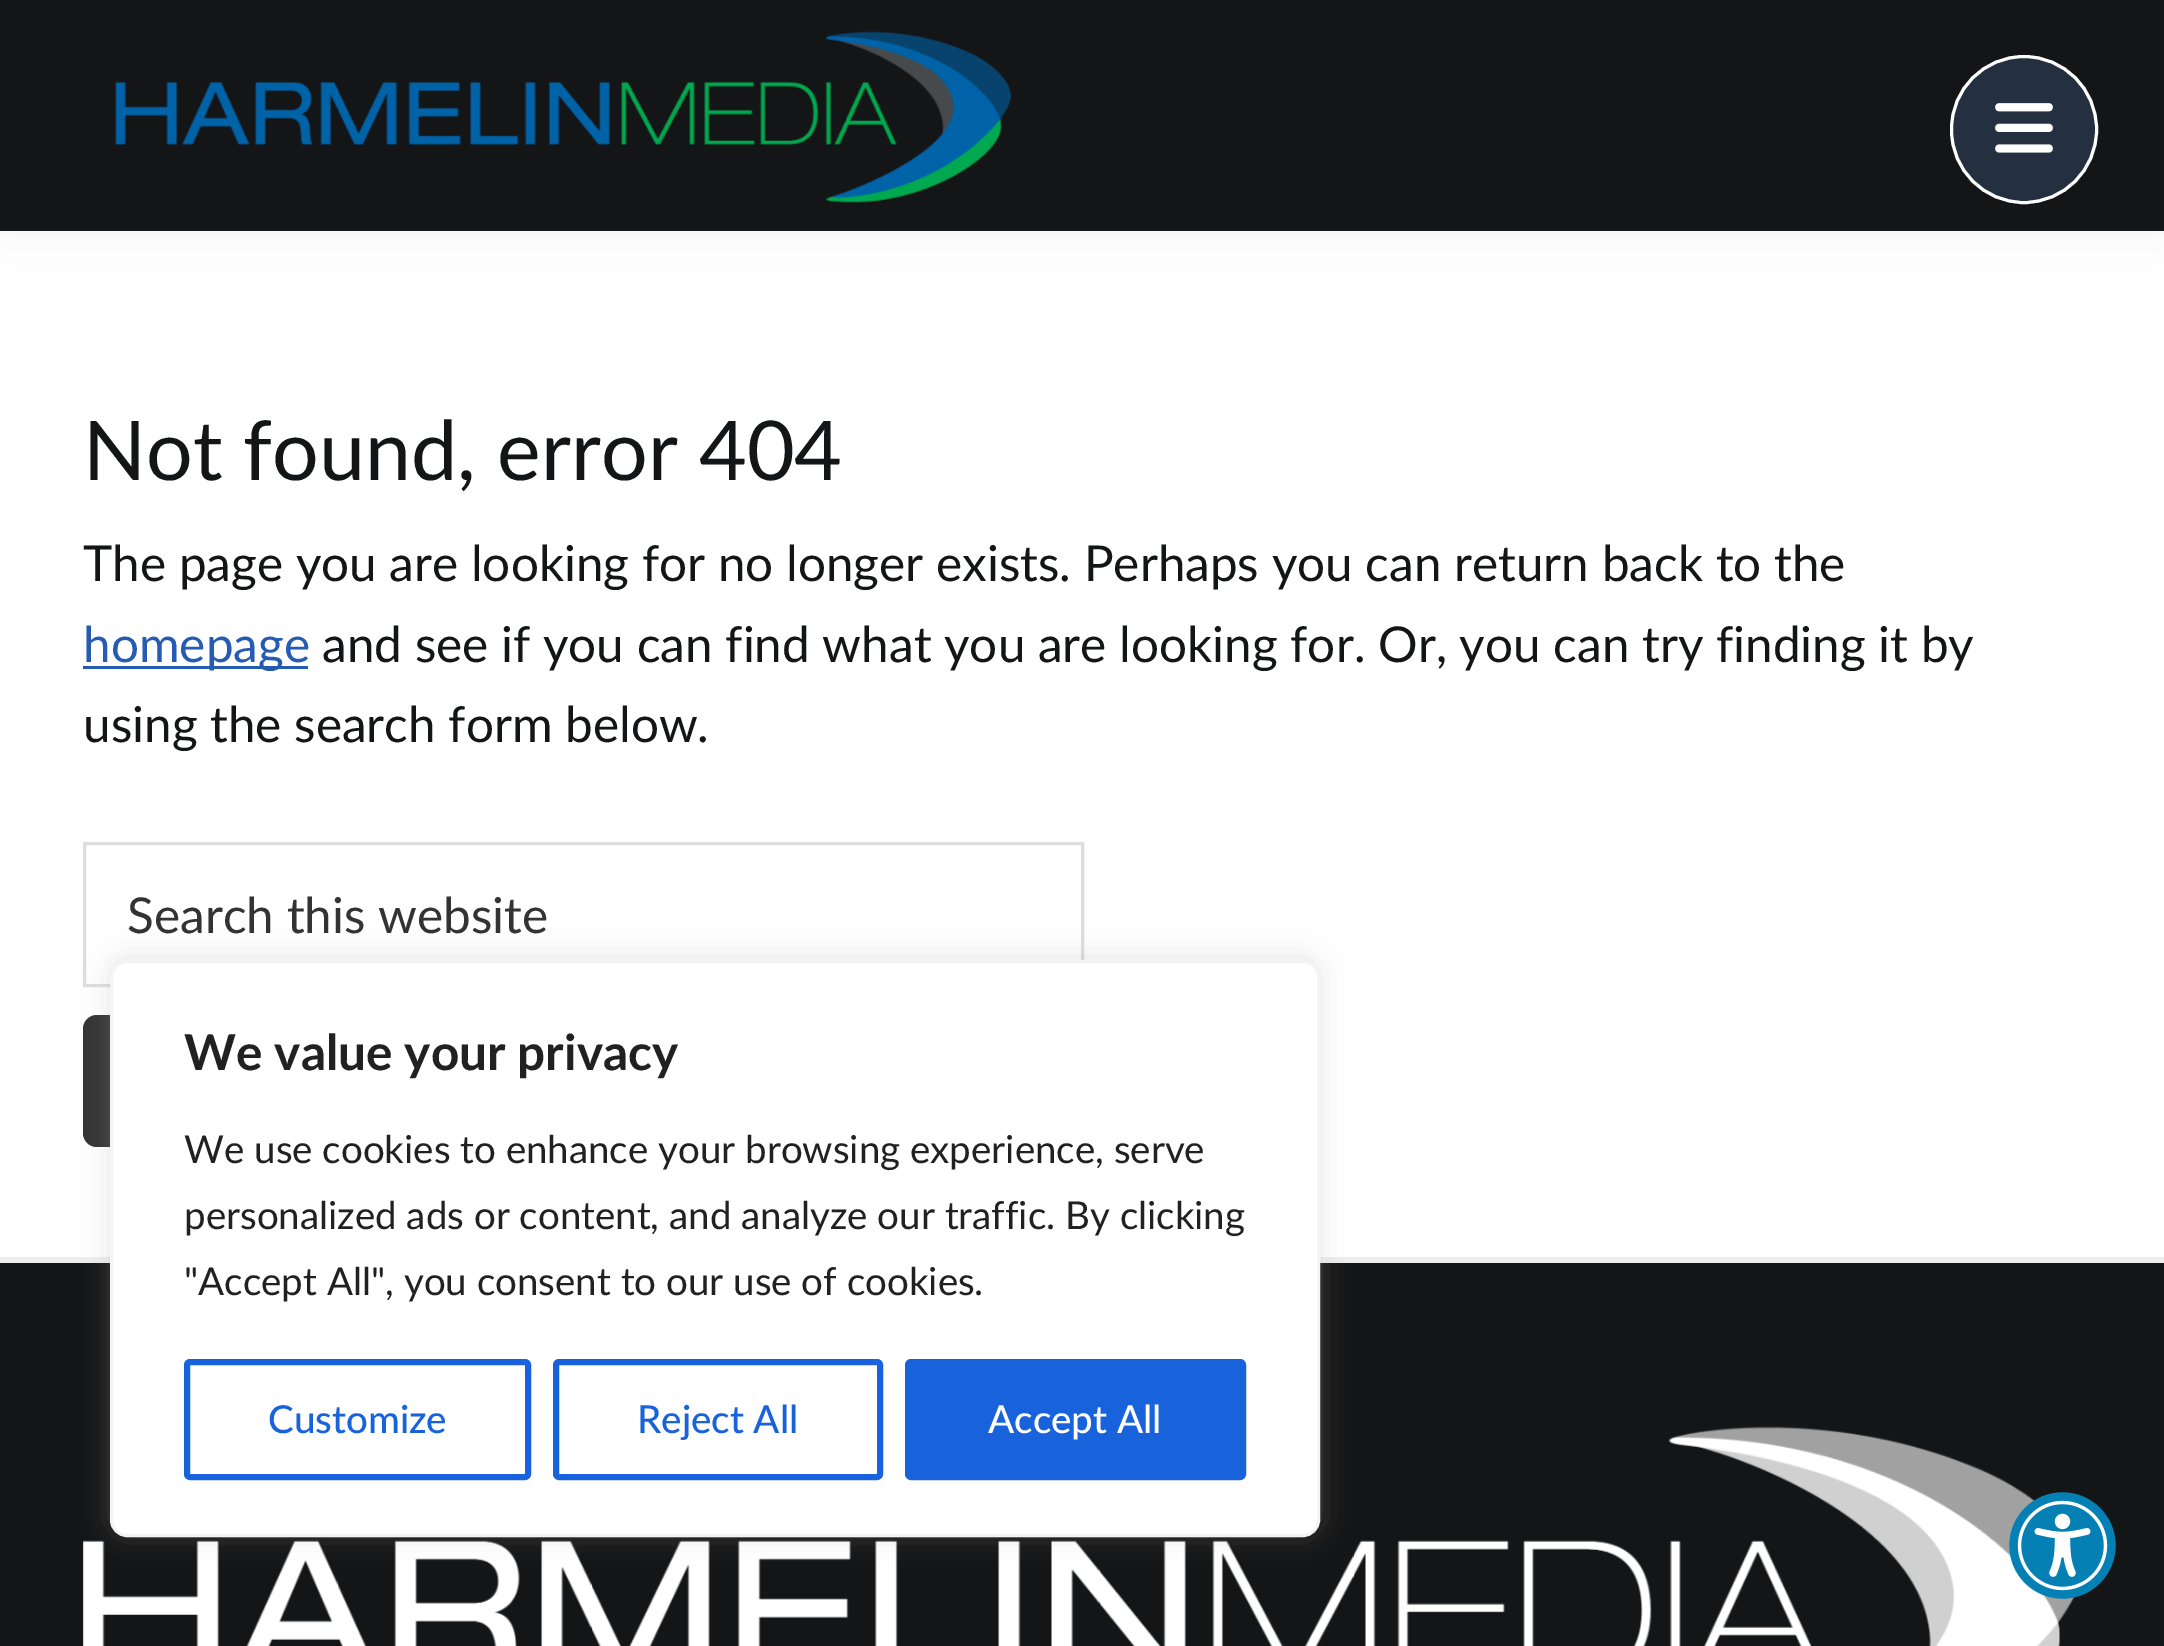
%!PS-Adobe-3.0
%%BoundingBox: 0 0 2164 1646
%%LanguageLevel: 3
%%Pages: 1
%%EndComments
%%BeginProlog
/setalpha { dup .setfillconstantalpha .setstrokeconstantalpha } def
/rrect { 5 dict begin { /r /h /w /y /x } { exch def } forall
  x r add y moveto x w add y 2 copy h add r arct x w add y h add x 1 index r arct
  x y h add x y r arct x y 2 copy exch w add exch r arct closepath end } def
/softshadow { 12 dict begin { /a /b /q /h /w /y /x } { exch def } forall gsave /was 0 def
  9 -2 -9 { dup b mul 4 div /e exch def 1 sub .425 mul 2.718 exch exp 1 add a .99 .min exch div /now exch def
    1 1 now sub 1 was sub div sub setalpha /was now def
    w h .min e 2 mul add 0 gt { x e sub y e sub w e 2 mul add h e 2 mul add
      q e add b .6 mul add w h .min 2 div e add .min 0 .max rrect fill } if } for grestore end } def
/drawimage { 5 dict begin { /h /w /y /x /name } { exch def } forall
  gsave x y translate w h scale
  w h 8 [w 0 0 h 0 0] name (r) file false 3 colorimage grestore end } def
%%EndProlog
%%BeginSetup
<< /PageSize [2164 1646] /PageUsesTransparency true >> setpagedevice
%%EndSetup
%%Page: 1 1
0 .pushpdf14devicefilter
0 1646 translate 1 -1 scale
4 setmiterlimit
1 setgray
0 0 2164 1646 rectfill
0 setgray
0 0 2164 231 0 27.5 0.05 softshadow
0.078 0.082 0.086 setrgbcolor
0 0 2164 231 rectfill
0.141 0.188 0.251 setrgbcolor
1951.5 56.5 145 146 72.5 rrect gsave fill grestore
1 setgray
3 setlinewidth
stroke
(images/1.raw) 1995 103 58 50 drawimage
(images/2.raw) 115 31 897 172 drawimage
0.149 0.357 0.702 setrgbcolor
83 666 225 3 rectfill
0.867 setgray
84.5 843.5 998 142 rectstroke
0.2 setgray
83 1015 297 132 14 rrect fill
0.078 0.082 0.086 setrgbcolor
0 1263 2164 383 rectfill
0.933 setgray
0 1257 2164 6 rectfill
(images/3.raw) 83 1426 1992 220 drawimage
0.675 0.671 0.671 setrgbcolor
110 957 1210 578 17 14 0.3 softshadow
1 setgray
111.5 961.5 1207 574 15.5 rrect gsave fill grestore
0.957 setgray
stroke
0.094 0.388 0.863 setrgbcolor
6 setlinewidth
187 1362 341 115 3 rrect stroke
556 1362 324 115 3 rrect stroke
908 1362 335 115 3 rrect gsave fill grestore
stroke
1 setgray
newpath 2062 1495 moveto 2035 1495 2012 1518 2012 1546 curveto 2012 1573 2035 1596 2062 1596 curveto 2090 1596 2113 1573 2113 1546 curveto 2113 1518 2090 1495 2062 1495 curveto closepath fill
(images/4.raw) 2009 1492 107 107 drawimage
/Lato-Regular [82.5 0 0 -82.5 0 0] selectfont
0.078 0.082 0.086 setrgbcolor
83 480 moveto (Not found, error 404) show
/Lato-Regular [49.5 0 0 -49.5 0 0] selectfont
83 581 moveto (The page you are looking for no longer exists. Perhaps you can return back to the) show
0.149 0.357 0.702 setrgbcolor
83 662 moveto (homepage) show
0.078 0.082 0.086 setrgbcolor
322 662 moveto (and see if you can find what you are looking for. Or, you can try finding it by) show
83 742 moveto (using the search form below.) show
0.2 setgray
127 933 moveto (Search this website) show
/Lato-Bold [49.5 0 0 -49.5 0 0] selectfont
0.129 setgray
184 1070 moveto (We value your privacy) show
/Lato-Regular [38.5 0 0 -38.5 0 0] selectfont
184 1163 moveto (We use cookies to enhance your browsing experience, serve) show
184 1229 moveto (personalized ads or content, and analyze our traffic. By clicking) show
184 1295 moveto ("Accept All", you consent to our use of cookies.) show
/Lato-Medium [38.5 0 0 -38.5 0 0] selectfont
0.094 0.388 0.863 setrgbcolor
268 1433 moveto (Customize) show
637 1433 moveto (Reject All) show
1 setgray
988 1433 moveto (Accept All) show
.poppdf14devicefilter showpage
%%EOF
